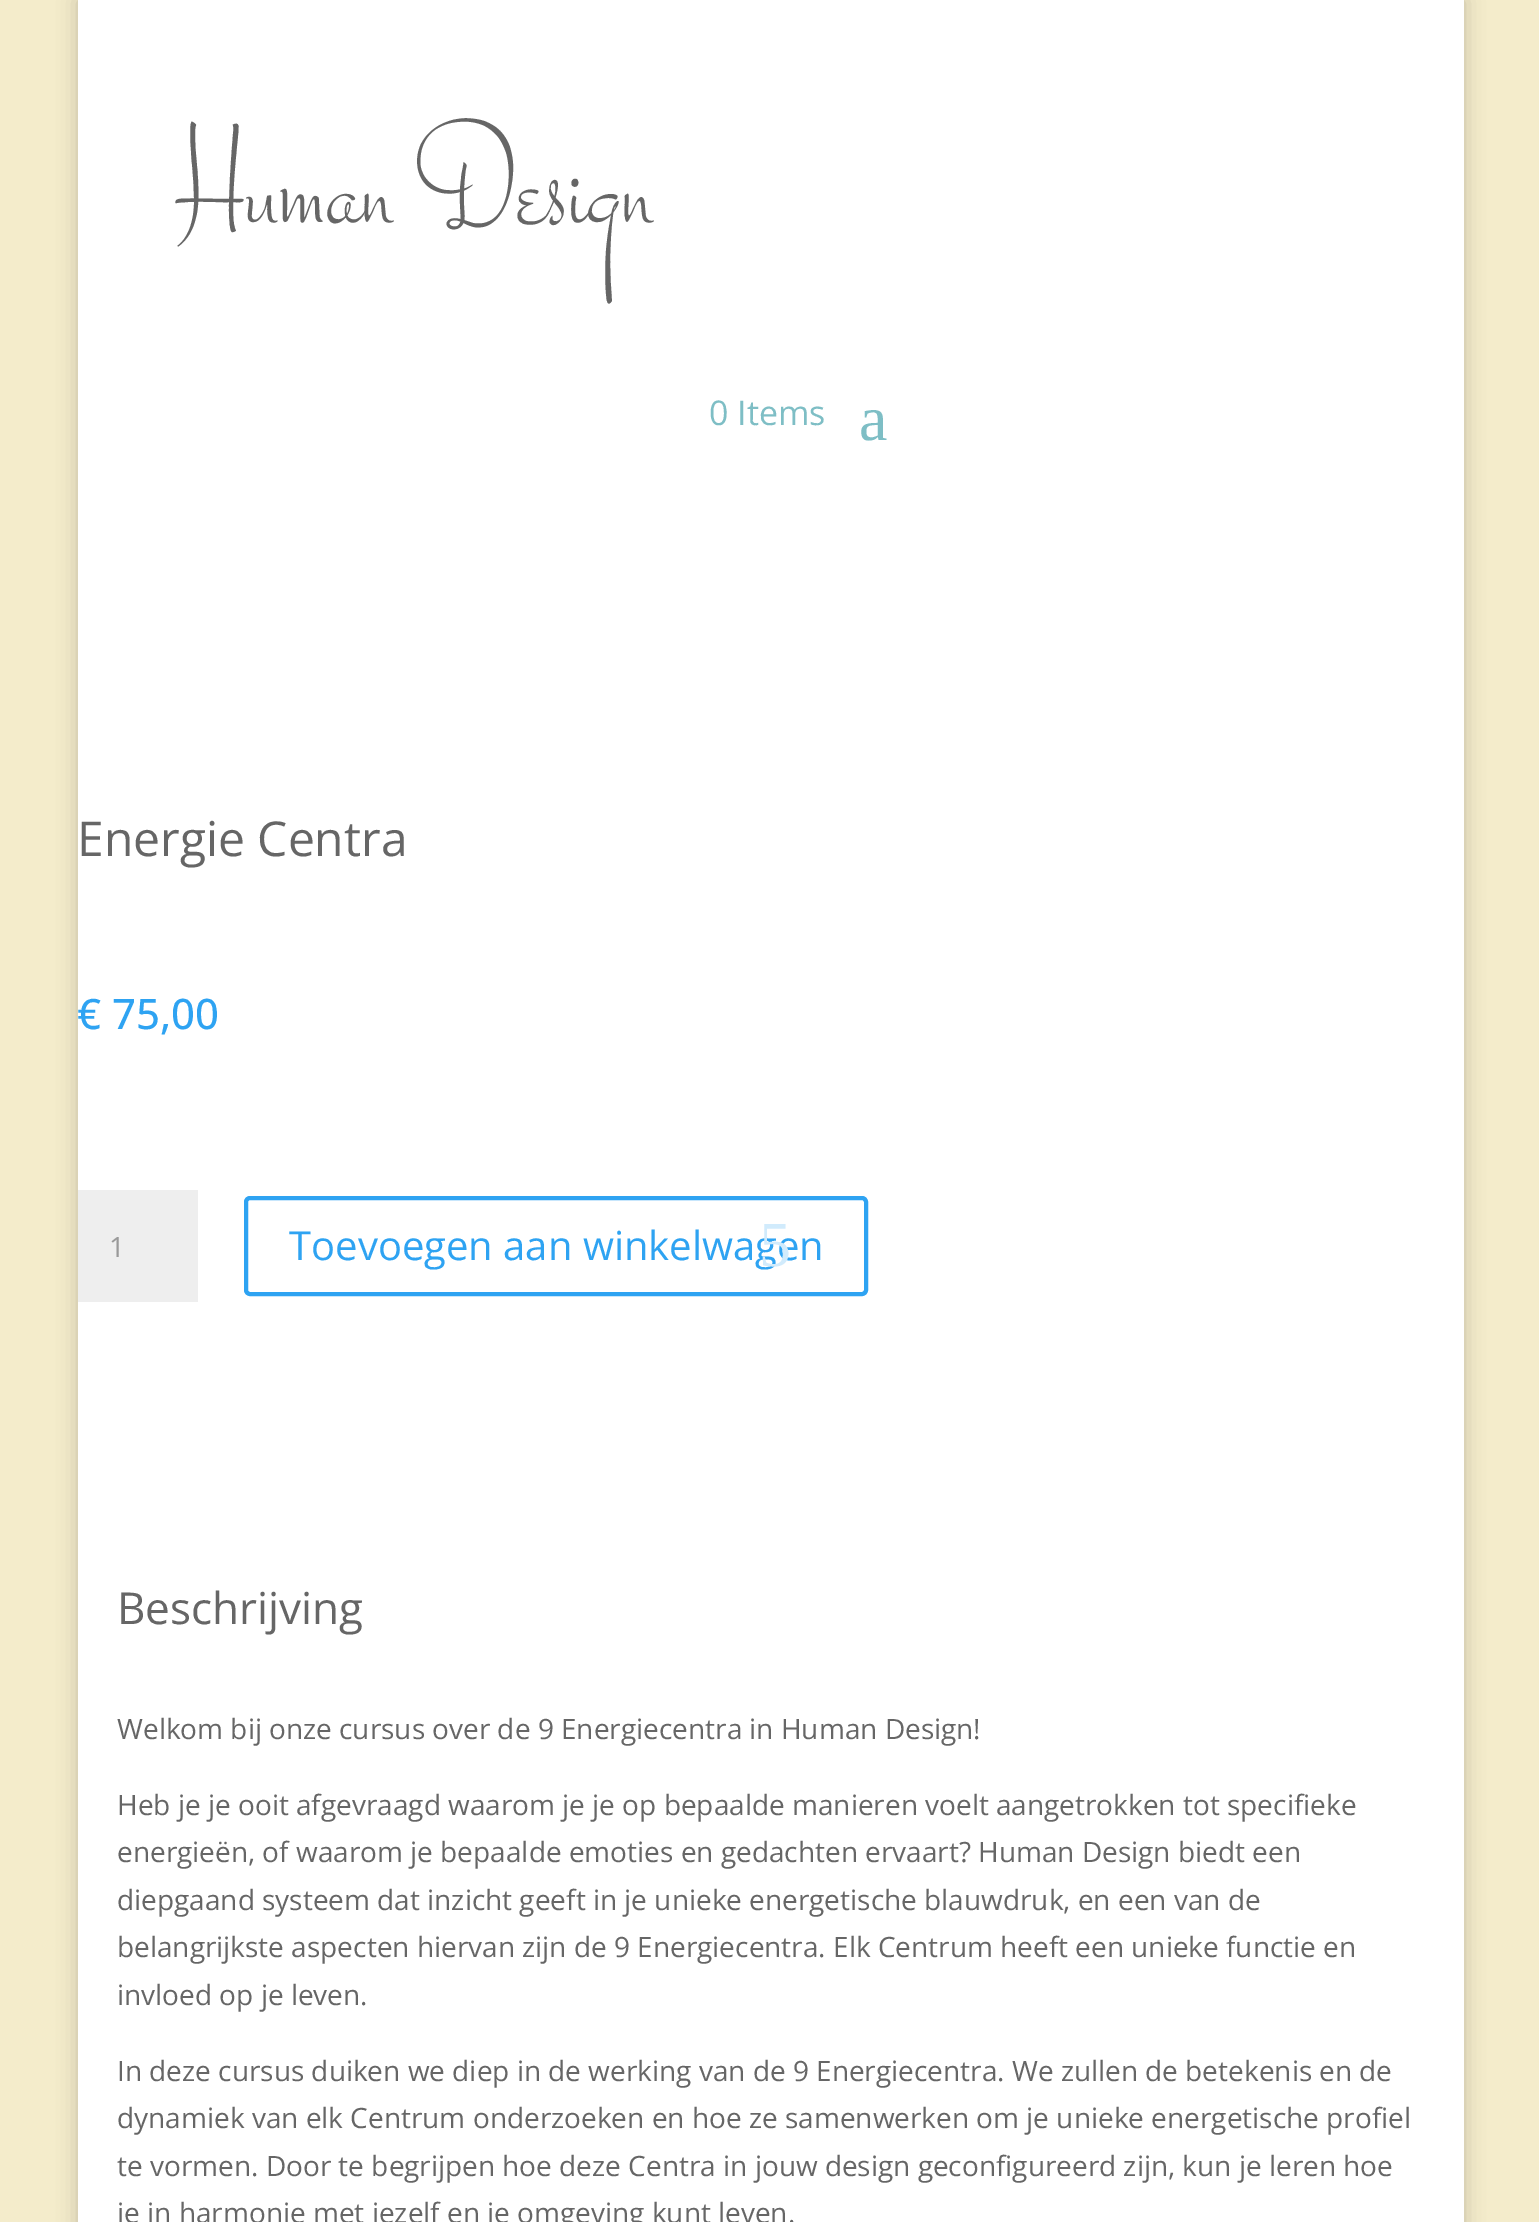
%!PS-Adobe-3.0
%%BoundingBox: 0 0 1539 2222
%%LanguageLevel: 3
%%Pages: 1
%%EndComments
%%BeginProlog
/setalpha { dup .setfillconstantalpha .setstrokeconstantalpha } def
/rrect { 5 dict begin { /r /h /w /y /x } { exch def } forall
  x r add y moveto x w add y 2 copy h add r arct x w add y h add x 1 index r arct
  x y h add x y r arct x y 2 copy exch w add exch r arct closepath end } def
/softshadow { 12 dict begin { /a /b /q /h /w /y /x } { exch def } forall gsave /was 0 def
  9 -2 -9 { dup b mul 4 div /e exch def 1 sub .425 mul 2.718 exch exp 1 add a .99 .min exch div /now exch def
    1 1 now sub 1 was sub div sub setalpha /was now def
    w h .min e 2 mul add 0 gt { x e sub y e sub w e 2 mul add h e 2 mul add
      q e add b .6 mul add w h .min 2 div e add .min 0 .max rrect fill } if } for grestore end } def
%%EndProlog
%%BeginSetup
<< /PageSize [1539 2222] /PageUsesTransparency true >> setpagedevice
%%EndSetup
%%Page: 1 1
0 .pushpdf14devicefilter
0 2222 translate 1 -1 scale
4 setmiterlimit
0.957 0.925 0.796 setrgbcolor
0 0 1539 2222 rectfill
0 setgray
78 0 1386 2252 0 10 0.2 softshadow
1 setgray
78 0 1386 2222 rectfill
0.933 setgray
78 1190 120 112 rectfill
0.18 0.639 0.949 setrgbcolor
4 setlinewidth
246 1198 620 96 4 rrect stroke
/Stalemate-Regular [140 0 0 -140 0 0] selectfont
0.4 setgray
177 224 moveto (Human Design) show
/OpenSans-Regular [34 0 0 -34 0 0] selectfont
0.494 0.745 0.773 setrgbcolor
709 425 moveto (0 Items) show
/LiberationSerif-Regular [64 0 0 -64 0 0] selectfont
859 440 moveto (a) show
/OpenSans-Regular [48 0 0 -48 0 0] selectfont
0.4 setgray
77 856 moveto (Energie Centra) show
/OpenSans-Medium [42 0 0 -42 0 0] selectfont
0.18 0.639 0.949 setrgbcolor
77 1029 moveto (€ 75,00) show
/OpenSans-Regular [28 0 0 -28 0 0] selectfont
0.6 setgray
109 1257 moveto (1) show
/OpenSans-Regular [40 0 0 -40 0 0] selectfont
0.18 0.639 0.949 setrgbcolor
289 1260 moveto (Toevoegen aan winkelwagen) show
/LiberationSerif-Regular [64 0 0 -64 0 0] selectfont
0.82 0.922 0.988 setrgbcolor
759 1266 moveto (5) show
/OpenSans-Regular [44 0 0 -44 0 0] selectfont
0.4 setgray
117 1624 moveto (Beschrijving) show
/OpenSans-Regular [28 0 0 -28 0 0] selectfont
117 1739 moveto (Welkom bij onze cursus over de 9 Energiecentra in Human Design!) show
117 1815 moveto (Heb je je ooit afgevraagd waarom je je op bepaalde manieren voelt aangetrokken tot specifieke) show
117 1862 moveto (energieën, of waarom je bepaalde emoties en gedachten ervaart? Human Design biedt een) show
117 1910 moveto (diepgaand systeem dat inzicht geeft in je unieke energetische blauwdruk, en een van de) show
117 1957 moveto (belangrijkste aspecten hiervan zijn de 9 Energiecentra. Elk Centrum heeft een unieke functie en) show
117 2005 moveto (invloed op je leven.) show
117 2081 moveto (In deze cursus duiken we diep in de werking van de 9 Energiecentra. We zullen de betekenis en de) show
117 2128 moveto (dynamiek van elk Centrum onderzoeken en hoe ze samenwerken om je unieke energetische profiel) show
117 2176 moveto (te vormen. Door te begrijpen hoe deze Centra in jouw design geconfigureerd zijn, kun je leren hoe) show
117 2223 moveto (je in harmonie met jezelf en je omgeving kunt leven.) show
.poppdf14devicefilter showpage
%%EOF
